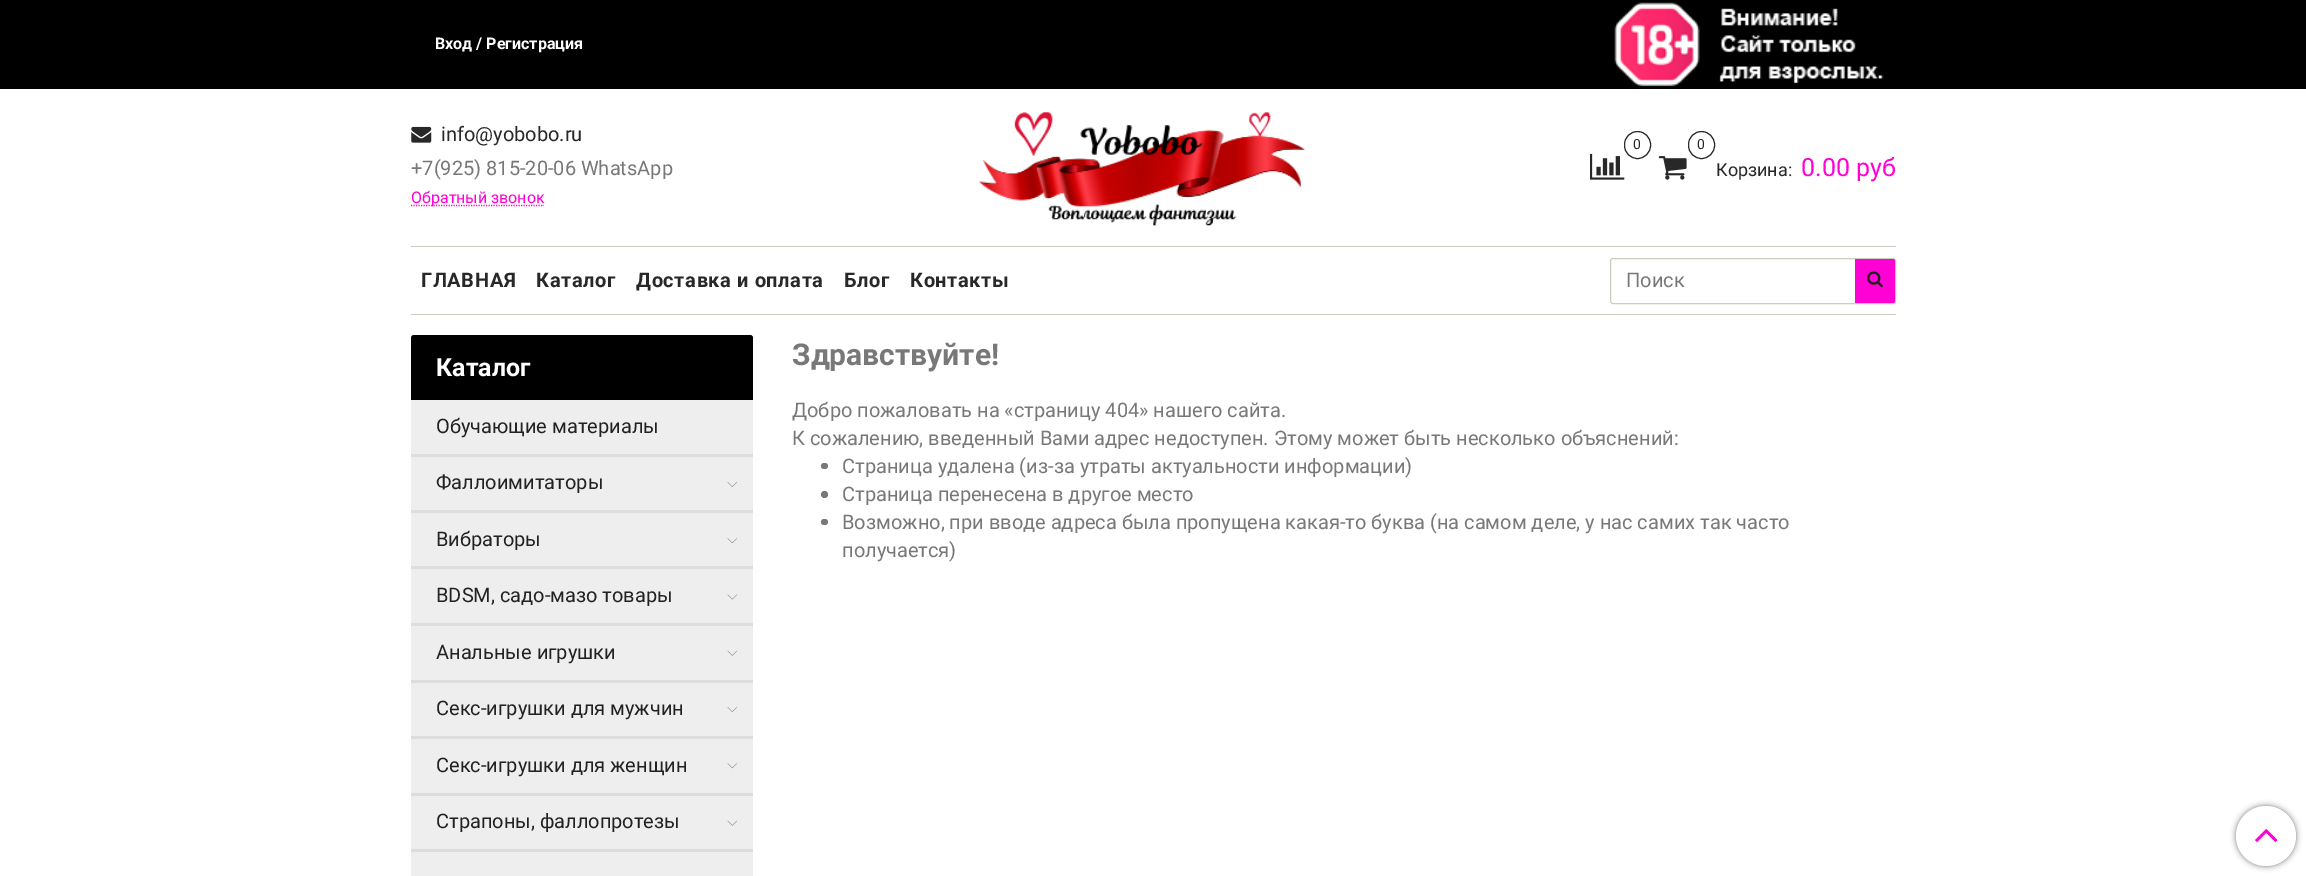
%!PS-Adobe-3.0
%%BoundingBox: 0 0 2306 876
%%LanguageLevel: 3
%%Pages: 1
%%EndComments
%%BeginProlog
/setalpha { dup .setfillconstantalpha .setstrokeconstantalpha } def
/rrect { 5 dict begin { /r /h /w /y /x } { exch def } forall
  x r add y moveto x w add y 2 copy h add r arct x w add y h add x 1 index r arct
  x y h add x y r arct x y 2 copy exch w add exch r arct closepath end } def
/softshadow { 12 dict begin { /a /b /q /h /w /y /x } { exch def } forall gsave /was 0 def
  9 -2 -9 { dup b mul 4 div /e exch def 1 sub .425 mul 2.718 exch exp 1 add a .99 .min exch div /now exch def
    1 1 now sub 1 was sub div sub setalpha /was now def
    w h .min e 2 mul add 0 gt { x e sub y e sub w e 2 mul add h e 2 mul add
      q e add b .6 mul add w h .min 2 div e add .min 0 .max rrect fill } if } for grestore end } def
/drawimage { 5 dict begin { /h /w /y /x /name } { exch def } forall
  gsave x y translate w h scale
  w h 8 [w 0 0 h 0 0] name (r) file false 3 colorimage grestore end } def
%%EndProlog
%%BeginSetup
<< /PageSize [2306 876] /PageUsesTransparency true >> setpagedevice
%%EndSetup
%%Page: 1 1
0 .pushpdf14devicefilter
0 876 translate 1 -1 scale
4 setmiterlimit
1 setgray
0 0 2306 876 rectfill
0 setgray
0 0 2306 89 rectfill
(images/1.raw) 1614 2 270 85 drawimage
(images/2.raw) 411 126 21 17 drawimage
1 0 0.835 setrgbcolor
1.2 setlinewidth
[1.25 1.25] 0 setdash
newpath 411 205.5 moveto 544 205.5 lineto stroke
(images/3.raw) 978 112 327 114 drawimage
(images/4.raw) 1590 153 35 27 drawimage
0.157 setgray
1 setlinewidth
[] 0 setdash
1624.5 131.5 26 27 13 rrect stroke
1688.5 131.5 26 27 13 rrect stroke
(images/5.raw) 1658 156 29 24 drawimage
0.8 0.8 0.757 setrgbcolor
411 246 1485 1 rectfill
411 314 1485 1 rectfill
1610.5 258.5 285 45 2.5 rrect stroke
1 0 0.835 setrgbcolor
newpath 1855 259 moveto 1893 259 lineto 1894 259 1895 260 1895 261 curveto 1895 301 lineto 1895 302 1894 303 1893 303 curveto 1855 303 lineto closepath fill
(images/6.raw) 1867 271 16 17 drawimage
0 setgray
newpath 414 335 moveto 750 335 lineto 751.5 335 753 336.5 753 338 curveto 753 400 lineto 411 400 lineto 411 338 lineto 411 336.5 412.5 335 414 335 curveto closepath fill
0.933 setgray
411 400 342 476 rectfill
0.867 setgray
411 454 342 3 rectfill
411 510 342 3 rectfill
(images/7.raw) 727 482 10 5 drawimage
411 566 342 3 rectfill
(images/8.raw) 727 538 10 6 drawimage
411 623 342 3 rectfill
(images/9.raw) 727 594 10 6 drawimage
411 680 342 3 rectfill
(images/10.raw) 727 650 10 6 drawimage
411 736 342 3 rectfill
(images/7.raw) 727 707 10 5 drawimage
411 793 342 3 rectfill
(images/8.raw) 727 763 10 6 drawimage
411 849 342 3 rectfill
(images/10.raw) 727 820 10 6 drawimage
0.471 setgray
821 463 7 6 3 rrect fill
newpath 824.5 494.5 3.5 0 360 arc closepath fill
821 519 7 6 3 rrect fill
0.467 setgray
2236 806 60 60 30 3 1 softshadow
1 setgray
newpath 2266 836 30 0 360 arc closepath fill
(images/11.raw) 2255 829 23 13 drawimage
/Roboto-Bold [16 0 0 -16 0 0] selectfont
435 49 moveto (Вход / Регистрация) show
/Roboto-Regular [20 0 0 -20 0 0] selectfont
0.157 setgray
441 141 moveto (info@yobobo.ru) show
0.471 setgray
411 175 moveto (+7\(925\) 815-20-06 WhatsApp) show
/Roboto-Regular [16 0 0 -16 0 0] selectfont
1 0 0.835 setrgbcolor
411 203 moveto (Обратный звонок) show
/Roboto-Regular [14 0 0 -14 0 0] selectfont
0.157 setgray
1633 149 moveto (0) show
1697 149 moveto (0) show
/Roboto-Regular [18 0 0 -18 0 0] selectfont
1716 176 moveto (Корзина:) show
/Roboto-Regular [25 0 0 -25 0 0] selectfont
1 0 0.835 setrgbcolor
1801 176 moveto (0.00 руб) show
/Roboto-Bold [20 0 0 -20 0 0] selectfont
0.157 setgray
421 287 moveto 0.6 0 (ГЛАВНАЯ) ashow
536 287 moveto 0.6 0 (Каталог) ashow
636 287 moveto 0.6 0 (Доставка и оплата) ashow
844 287 moveto 0.6 0 (Блог) ashow
910 287 moveto 0.6 0 (Контакты) ashow
/Roboto-Regular [20 0 0 -20 0 0] selectfont
0.471 setgray
1626 287 moveto (Поиск) show
/Roboto-Bold [25 0 0 -25 0 0] selectfont
1 setgray
436 376 moveto (Каталог) show
/Roboto-Regular [20 0 0 -20 0 0] selectfont
0.133 setgray
436 433 moveto (Обучающие материалы) show
436 489 moveto (Фаллоимитаторы) show
436 546 moveto (Вибраторы) show
436 602 moveto (BDSM, садо-мазо товары) show
436 659 moveto (Анальные игрушки) show
436 715 moveto (Секс-игрушки для мужчин) show
436 772 moveto (Секс-игрушки для женщин) show
436 828 moveto (Страпоны, фаллопротезы) show
/Roboto-Bold [30 0 0 -30 0 0] selectfont
0.471 setgray
792 365 moveto (Здравствуйте!) show
/Roboto-Regular [20 0 0 -20 0 0] selectfont
792 417 moveto (Добро пожаловать на «страницу 404» нашего сайта.) show
792 445 moveto (К сожалению, введенный Вами адрес недоступен. Этому может быть несколько объяснений:) show
842 473 moveto (Страница удалена \(из-за утраты актуальности информации\)) show
842 501 moveto (Страница перенесена в другое место) show
842 529 moveto (Возможно, при вводе адреса была пропущена какая-то буква \(на самом деле, у нас самих так часто) show
842 557 moveto (получается\)) show
.poppdf14devicefilter showpage
%%EOF
